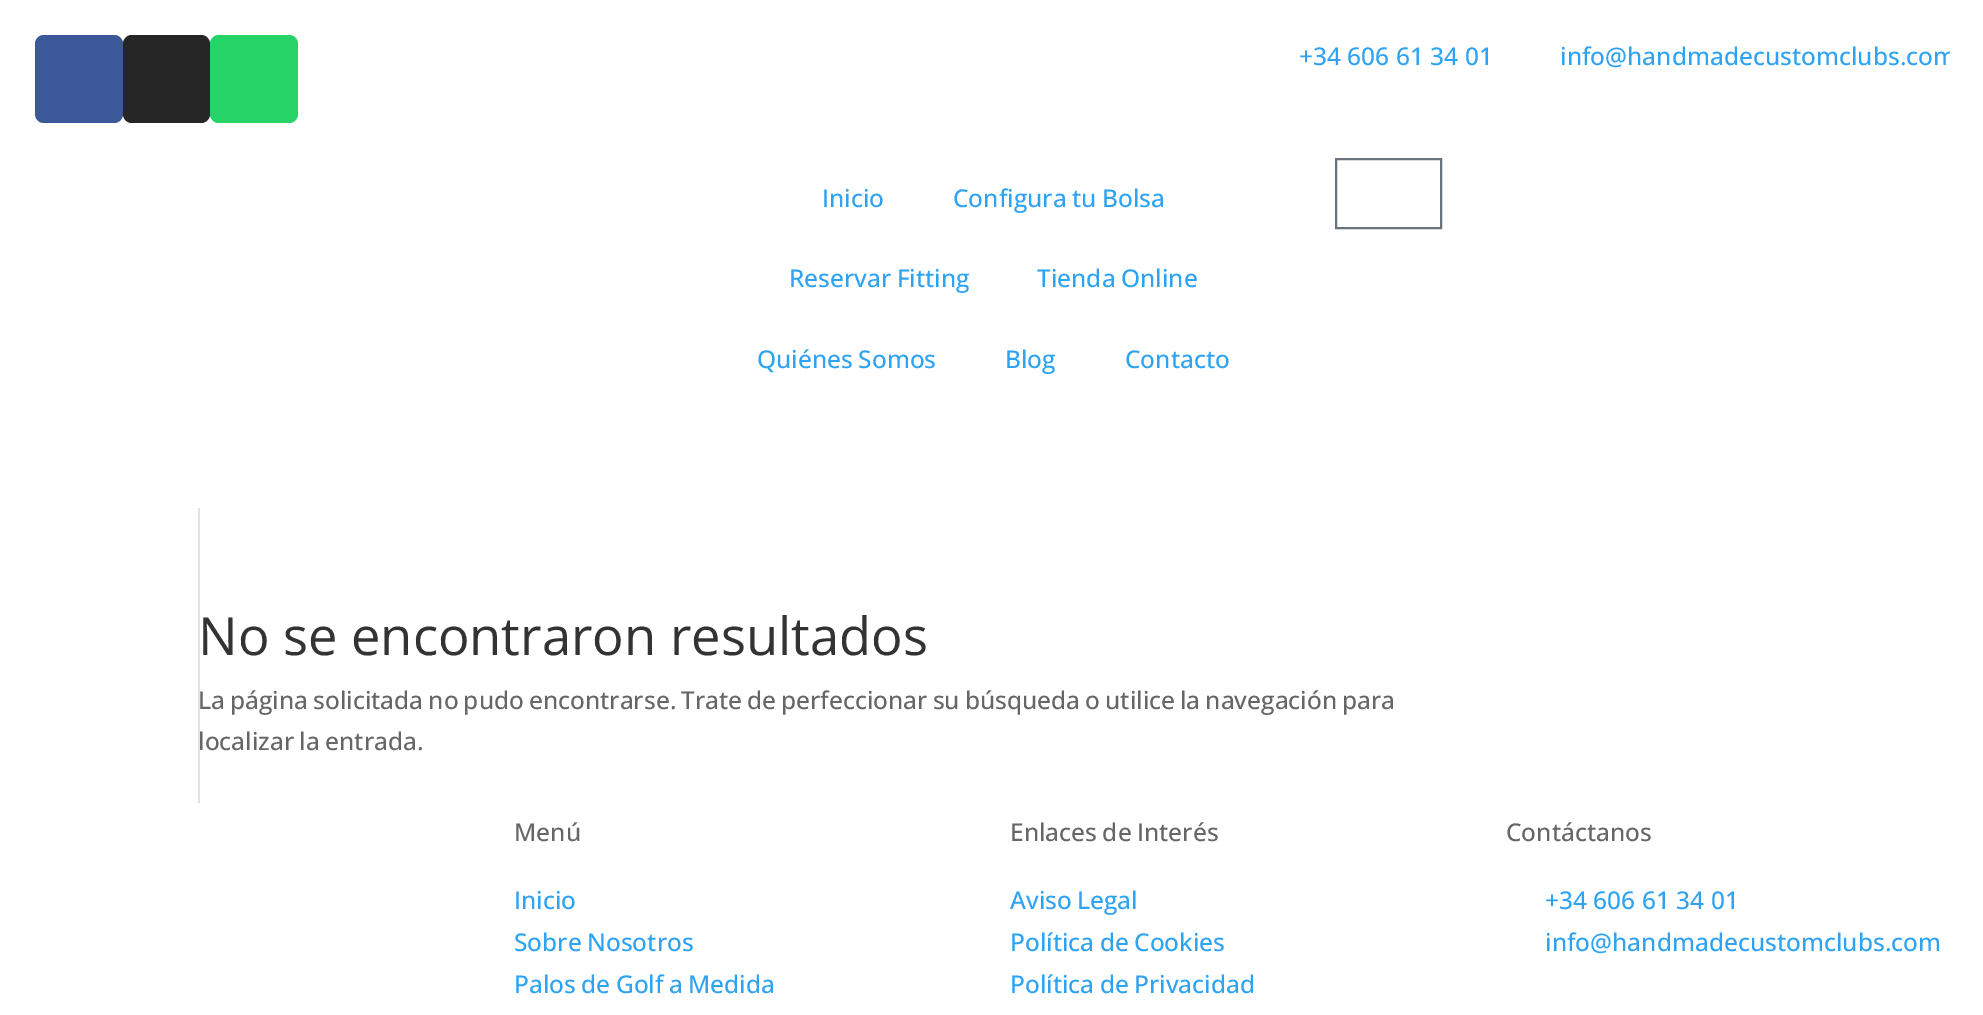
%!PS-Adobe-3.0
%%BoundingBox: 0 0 1983 1015
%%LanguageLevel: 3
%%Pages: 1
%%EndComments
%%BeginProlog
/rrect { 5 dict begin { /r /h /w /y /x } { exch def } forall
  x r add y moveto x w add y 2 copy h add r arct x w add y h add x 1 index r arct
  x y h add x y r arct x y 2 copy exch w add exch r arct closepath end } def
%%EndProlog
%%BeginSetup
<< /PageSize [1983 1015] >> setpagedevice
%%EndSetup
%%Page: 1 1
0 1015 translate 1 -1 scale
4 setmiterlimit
1 setgray
0 0 1983 1015 rectfill
0.231 0.349 0.596 setrgbcolor
35 35 88 88 9 rrect fill
0.149 setgray
123 35 87 88 9 rrect fill
0.145 0.827 0.4 setrgbcolor
210 35 88 88 9 rrect fill
0.412 0.447 0.49 setrgbcolor
2 setlinewidth
1336 159 105 69 rectstroke
0.886 setgray
198 508 2 295 rectfill
/OpenSans-Medium [24.5 0 0 -24.5 0 0] selectfont
0.18 0.639 0.949 setrgbcolor
1299 65 moveto (+34 606 61 34 01) show
gsave
1010 35 940 42 rectclip
1560 65 moveto (info@handmadecustomclubs.com) show
grestore
822 207 moveto (Inicio) show
953 207 moveto -1 0 32 (Configura tu Bolsa) widthshow
789 287 moveto -1 0 32 (Reservar Fitting) widthshow
1037 287 moveto -1 0 32 (Tienda Online) widthshow
757 368 moveto -1 0 32 (Quiénes Somos) widthshow
1005 368 moveto (Blog) show
1125 368 moveto (Contacto) show
/OpenSans-Regular [52.5 0 0 -52.5 0 0] selectfont
0.2 setgray
198 655 moveto (No se encontraron resultados) show
/OpenSans-Medium [24.5 0 0 -24.5 0 0] selectfont
0.4 setgray
198 709 moveto -1.4 0 32 (La página solicitada no pudo encontrarse. Trate de perfeccionar su búsqueda o utilice la navegación para) widthshow
198 750 moveto -1 0 32 (localizar la entrada.) widthshow
514 841 moveto (Menú) show
0.18 0.639 0.949 setrgbcolor
514 909 moveto (Inicio) show
514 951 moveto -1 0 32 (Sobre Nosotros) widthshow
514 993 moveto -1 0 32 (Palos de Golf a Medida) widthshow
0.4 setgray
1010 841 moveto -1 0 32 (Enlaces de Interés) widthshow
0.18 0.639 0.949 setrgbcolor
1010 909 moveto -1 0 32 (Aviso Legal) widthshow
1010 951 moveto -1 0 32 (Política de Cookies) widthshow
1010 993 moveto -1 0 32 (Política de Privacidad) widthshow
0.4 setgray
1506 841 moveto (Contáctanos) show
0.18 0.639 0.949 setrgbcolor
1545 909 moveto (+34 606 61 34 01) show
1545 951 moveto (info@handmadecustomclubs.com) show
showpage
%%EOF
